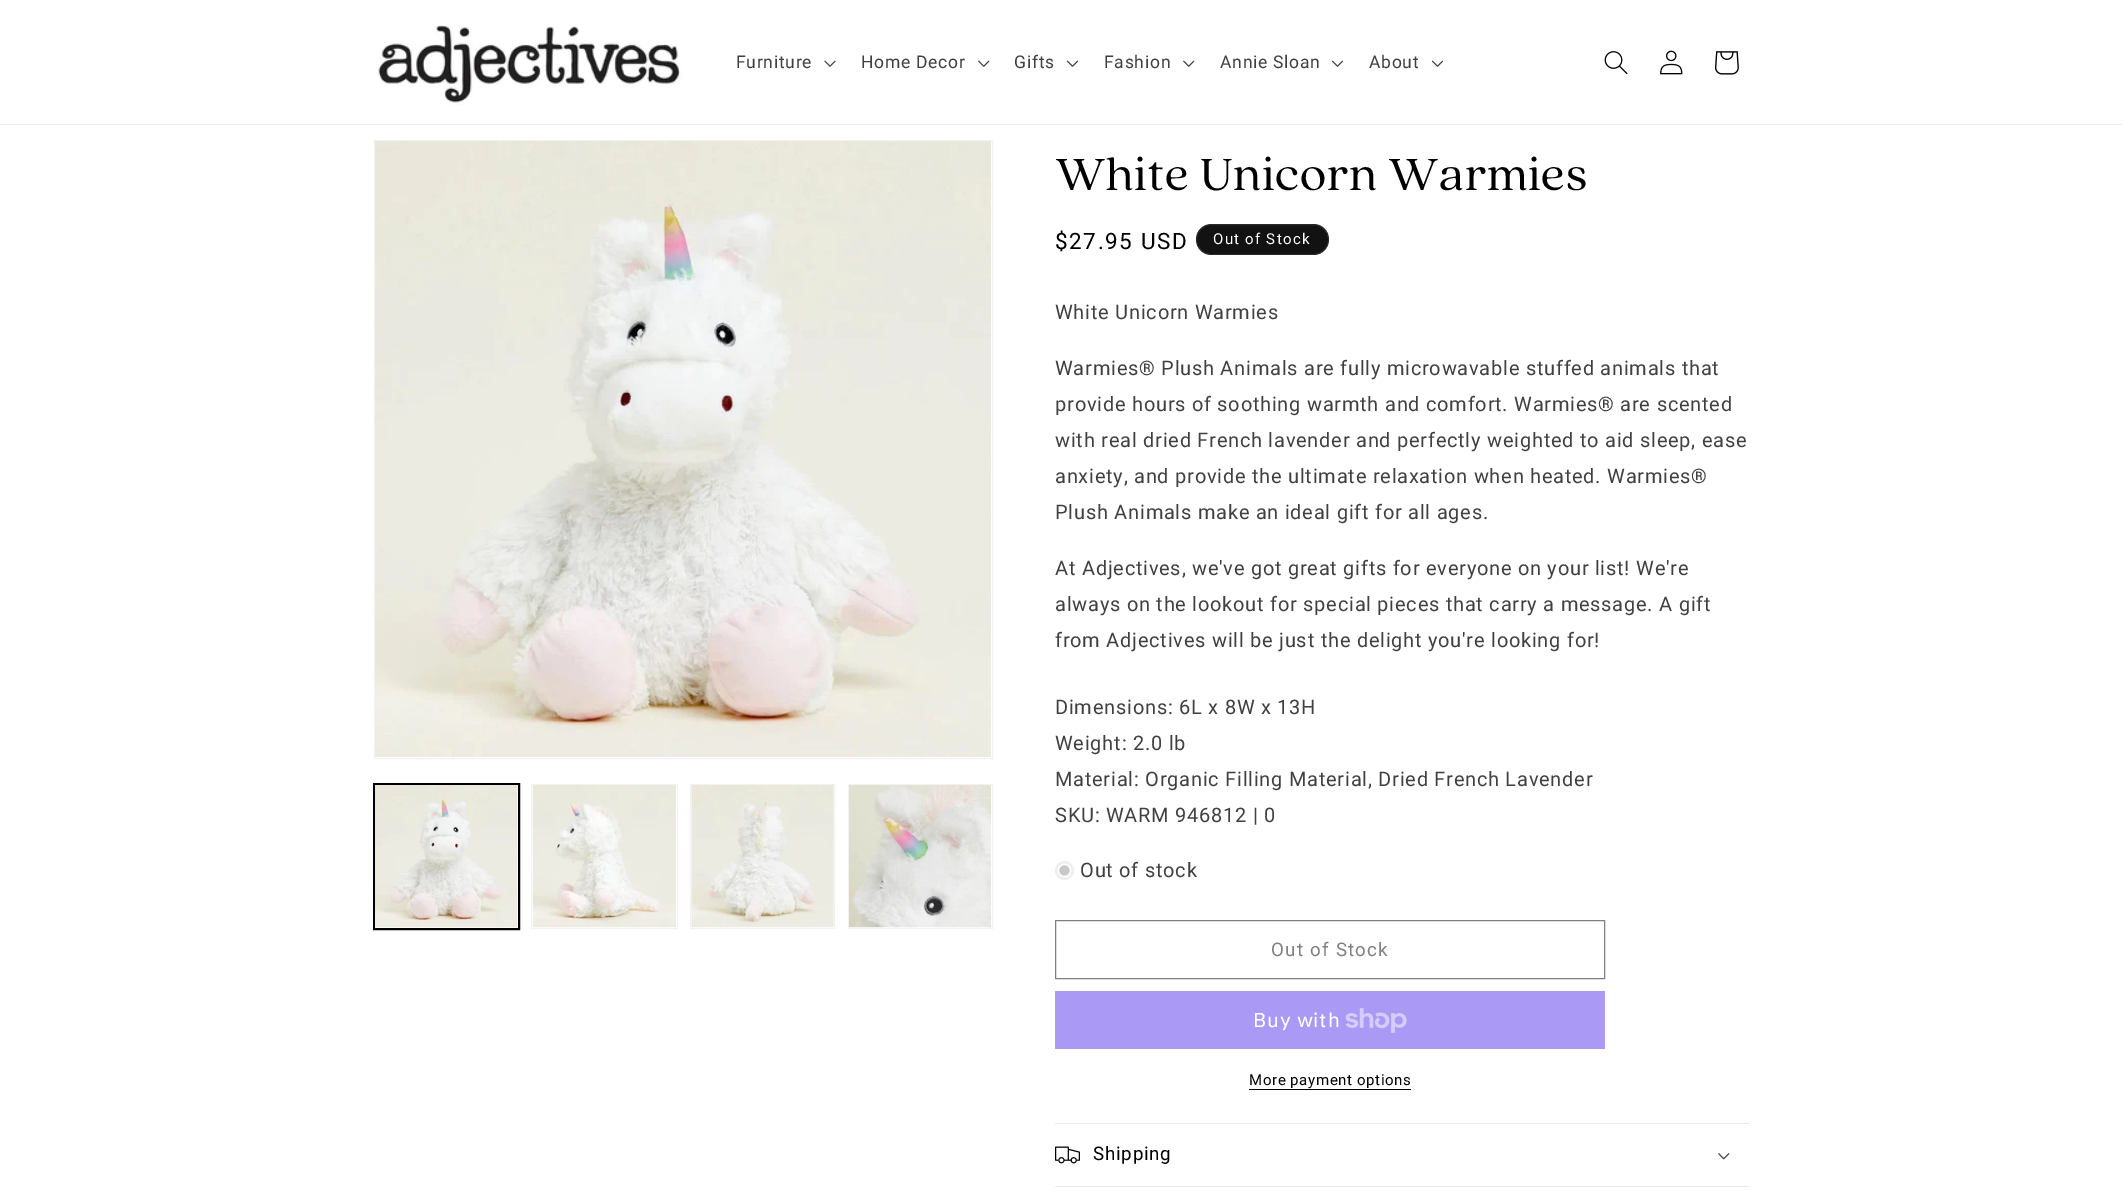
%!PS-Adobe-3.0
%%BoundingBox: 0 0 2122 1190
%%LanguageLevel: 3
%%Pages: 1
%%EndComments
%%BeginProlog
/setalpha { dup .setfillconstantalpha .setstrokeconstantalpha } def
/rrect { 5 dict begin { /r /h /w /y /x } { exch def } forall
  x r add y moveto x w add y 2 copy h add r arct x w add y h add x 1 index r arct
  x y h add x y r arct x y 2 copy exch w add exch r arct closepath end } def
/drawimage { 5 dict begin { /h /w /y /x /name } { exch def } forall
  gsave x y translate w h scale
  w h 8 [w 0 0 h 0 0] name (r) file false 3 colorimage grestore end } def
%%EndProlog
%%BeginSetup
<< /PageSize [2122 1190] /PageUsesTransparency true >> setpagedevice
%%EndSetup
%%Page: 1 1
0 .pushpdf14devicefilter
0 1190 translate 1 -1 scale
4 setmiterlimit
1 setgray
0 0 2122 1190 rectfill
0.922 setgray
0 124 2122 1 rectfill
(images/1.raw) 378 25 305 80 drawimage
(images/2.raw) 824 60 12 7 drawimage
(images/3.raw) 978 60 12 7 drawimage
(images/4.raw) 1066 60 13 7 drawimage
(images/3.raw) 1183 60 12 7 drawimage
(images/4.raw) 1331 60 13 7 drawimage
(images/4.raw) 1431 60 13 7 drawimage
(images/5.raw) 1604 51 24 24 drawimage
(images/6.raw) 1660 50 23 25 drawimage
(images/7.raw) 1715 51 24 24 drawimage
0.949 setgray
374.5 140.5 618 618 rectstroke
(images/8.raw) 375 141 616 616 drawimage
0 setgray
373.5 783.5 146 146 rectstroke
374.5 784.5 144 144 rectstroke
(images/9.raw) 375 785 143 143 drawimage
0.949 setgray
531.5 784.5 146 144 rectstroke
(images/10.raw) 532 785 144 143 drawimage
690.5 784.5 144 144 rectstroke
(images/11.raw) 691 785 143 143 drawimage
848.5 784.5 144 144 rectstroke
(images/12.raw) 849 785 142 143 drawimage
0.071 setgray
1196 224 133 31 15.5 rrect fill
0.1 setalpha
1 setgray
1196.5 224.5 132 30 15 rrect stroke
1 setalpha
0.937 setgray
newpath 1064.5 870.5 9.5 0 360 arc closepath fill
0.784 setgray
newpath 1064.5 870.5 6 0 360 arc closepath gsave fill grestore
1 setgray
1.2 setlinewidth
stroke
0.502 setgray
1 setlinewidth
1055.5 920.5 549 58 rectstroke
0.667 0.6 0.961 setrgbcolor
1055 991 550 58 rectfill
(images/13.raw) 1345 1008 62 25 drawimage
0 setgray
1249 1089 162 1 rectfill
0.922 setgray
1055 1123 694 1 rectfill
1055 1186 694 1 rectfill
(images/14.raw) 1055 1146 25 18 drawimage
(images/15.raw) 1718 1153 12 7 drawimage
/Roboto-Regular [17.5 0 0 -17.5 0 0] selectfont
0.251 setgray
736 68 moveto 0.75 0 (Furniture) ashow
861 68 moveto 0.75 0 (Home Decor) ashow
1014 68 moveto 0.75 0 (Gifts) ashow
1104 68 moveto 0.75 0 (Fashion) ashow
1220 68 moveto 0.75 0 (Annie Sloan) ashow
1369 68 moveto 0.75 0 (About) ashow
/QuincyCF-Regular [50 0 0 -50 0 0] selectfont
0 setgray
1055 190 moveto 0.75 0 (White Unicorn Warmies) ashow
/Roboto-Regular [22.5 0 0 -22.5 0 0] selectfont
1055 249 moveto 1.6 0 ($27.95 USD) ashow
/Roboto-Regular [15 0 0 -15 0 0] selectfont
1 setgray
1213 244 moveto 1.25 0 (Out of Stock) ashow
/Roboto-Regular [20 0 0 -20 0 0] selectfont
0.251 setgray
1055 319 moveto 0.75 0 (White Unicorn Warmies) ashow
1055 375 moveto 0.75 0 (Warmies® Plush Animals are fully microwavable stuffed animals that) ashow
1055 411 moveto 0.75 0 (provide hours of soothing warmth and comfort. Warmies® are scented) ashow
1055 447 moveto 0.75 0 (with real dried French lavender and perfectly weighted to aid sleep, ease) ashow
1055 483 moveto 0.75 0 (anxiety, and provide the ultimate relaxation when heated. Warmies®) ashow
1055 519 moveto 0.75 0 (Plush Animals make an ideal gift for all ages.) ashow
1055 575 moveto 0.75 0 (At Adjectives, we've got great gifts for everyone on your list! We're) ashow
1055 611 moveto 0.75 0 (always on the lookout for special pieces that carry a message. A gift) ashow
1055 647 moveto 0.75 0 (from Adjectives will be just the delight you're looking for!) ashow
1055 714 moveto 0.75 0 (Dimensions: 6L x 8W x 13H) ashow
1055 750 moveto 0.75 0 (Weight: 2.0 lb) ashow
1055 786 moveto 0.75 0 (Material: Organic Filling Material, Dried French Lavender) ashow
1055 822 moveto 0.75 0 (SKU: WARM 946812 | 0) ashow
1080 877 moveto 0.75 0 (Out of stock) ashow
/Roboto-Regular [18.75 0 0 -18.75 0 0] selectfont
0.502 setgray
1271 956 moveto 1.25 0 (Out of Stock) ashow
/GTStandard-Regular [20 0 0 -20 0 0] selectfont
1 setgray
1253 1027 moveto 0.75 0 (Buy with) ashow
/Roboto-Regular [15 0 0 -15 0 0] selectfont
0 setgray
1249 1085 moveto 0.6 0 (More payment options) ashow
/Roboto-Regular [18.75 0 0 -18.75 0 0] selectfont
1093 1160 moveto 0.75 0 (Shipping) ashow
.poppdf14devicefilter showpage
%%EOF
